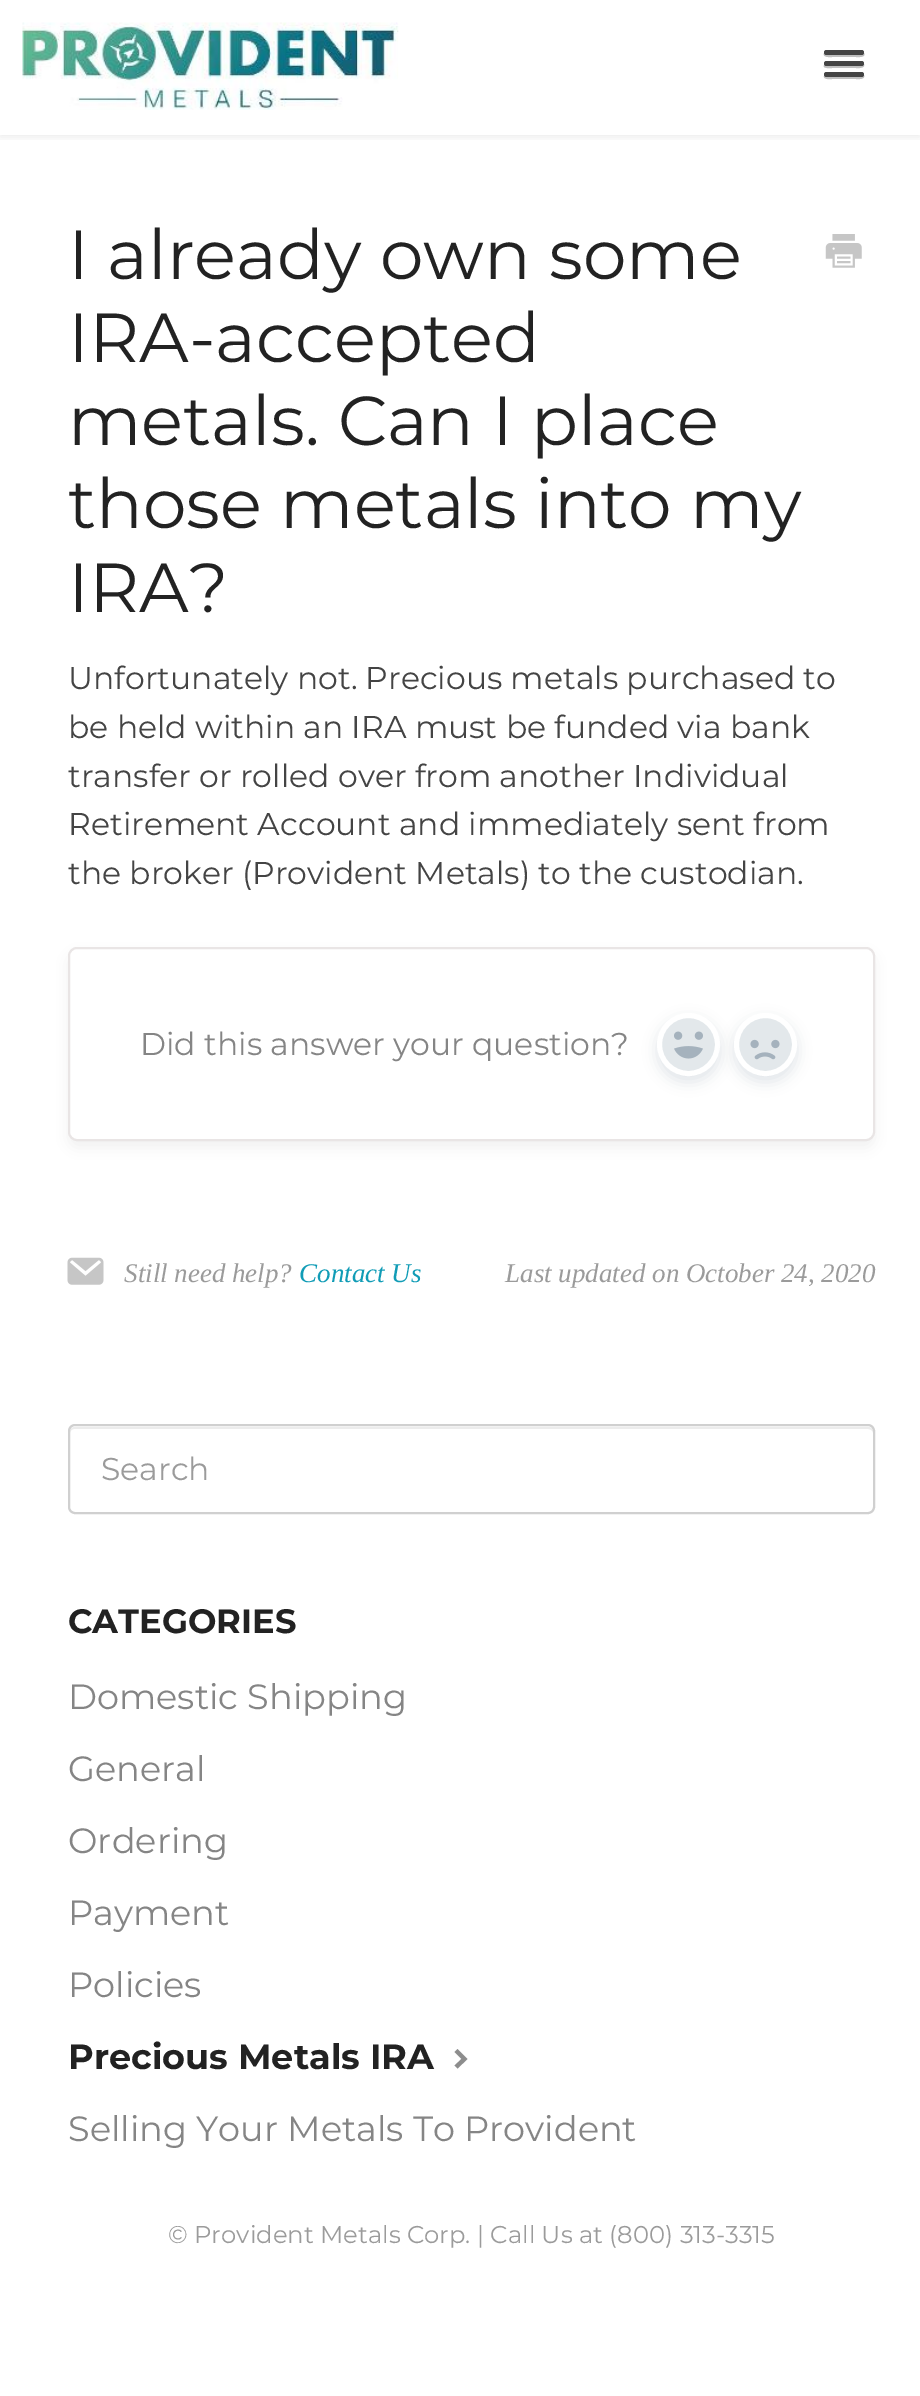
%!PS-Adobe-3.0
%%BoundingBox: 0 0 920 2396
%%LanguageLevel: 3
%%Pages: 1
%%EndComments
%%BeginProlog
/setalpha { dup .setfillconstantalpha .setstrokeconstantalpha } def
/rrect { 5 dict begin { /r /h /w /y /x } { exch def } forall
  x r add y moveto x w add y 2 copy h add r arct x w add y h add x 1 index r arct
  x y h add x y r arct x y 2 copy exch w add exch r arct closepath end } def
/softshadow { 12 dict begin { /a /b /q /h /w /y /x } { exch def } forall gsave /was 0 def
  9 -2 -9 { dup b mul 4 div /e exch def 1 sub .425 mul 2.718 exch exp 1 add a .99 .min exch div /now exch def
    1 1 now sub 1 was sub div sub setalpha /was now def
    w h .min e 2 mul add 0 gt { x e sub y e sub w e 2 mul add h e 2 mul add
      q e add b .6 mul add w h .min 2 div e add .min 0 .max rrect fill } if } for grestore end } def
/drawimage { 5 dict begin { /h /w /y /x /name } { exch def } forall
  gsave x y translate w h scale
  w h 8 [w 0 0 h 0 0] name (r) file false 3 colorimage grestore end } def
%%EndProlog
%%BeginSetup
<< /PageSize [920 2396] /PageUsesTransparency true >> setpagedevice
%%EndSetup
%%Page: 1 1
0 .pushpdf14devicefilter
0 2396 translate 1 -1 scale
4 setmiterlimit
1 setgray
0 0 920 2396 rectfill
gsave
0 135 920 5 rectclip
0 setgray
0 2 920 135 0 4.5 0.07 softshadow
grestore
(images/1.raw) 22 22 377 88 drawimage
0.749 setgray
newpath 824 53 moveto 822 58 831 57 832 57 curveto 856 57 lineto 856 57 867 58 864 53 curveto 862 54 lineto 858 54 826 55 824 53 curveto closepath fill
0.267 setgray
824 50 40 5 2.5 rrect fill
0.749 setgray
newpath 824 65 moveto 822 69 831 68 832 68 curveto 856 68 lineto 856 68 866 69 864 64 curveto 862 65 lineto 858 66 825 66 824 65 curveto closepath fill
0.267 setgray
824 61 40 5 2.5 rrect fill
0.749 setgray
newpath 824 76 moveto 823 80 831 79 832 79 curveto 856 79 lineto 857 79 866 80 864 75 curveto 862 76 lineto 858 77 825 77 824 76 curveto closepath fill
0.267 setgray
824 72 40 5 2.5 rrect fill
(images/2.raw) 825 234 37 34 drawimage
0 setgray
68 954 807 194 9 7 0.05 softshadow
1 setgray
69 948 805 192 8 rrect gsave fill grestore
0.914 0.898 0.898 setrgbcolor
2 setlinewidth
stroke
0.757 0.796 0.831 setrgbcolor
657 1019 63 63 31.5 7 0.5 softshadow
0.89 0.91 0.922 setrgbcolor
newpath 688.5 1044.5 29 0 360 arc closepath gsave fill grestore
1 setgray
5 setlinewidth
stroke
(images/3.raw) 674 1031 29 28 drawimage
0.757 0.796 0.831 setrgbcolor
734 1019 63 63 31.5 7 0.5 softshadow
0.89 0.91 0.922 setrgbcolor
newpath 765.5 1044.5 29 0 360 arc closepath gsave fill grestore
1 setgray
stroke
(images/4.raw) 750 1039 30 21 drawimage
(images/5.raw) 67 1257 37 28 drawimage
0.925 setgray
newpath 74 1429 moveto 868 1429 lineto 871 1429 873 1431 873 1433 curveto 873 1432 lineto 873 1429 871 1427 868 1427 curveto 75 1427 lineto 72 1427 70 1429 70 1432 curveto 70 1433 lineto 70 1431 72 1429 74 1429 curveto closepath fill
0.816 setgray
2 setlinewidth
69 1425 805 88 6 rrect stroke
0.553 setgray
newpath 457.5 2049 moveto 454.5 2052 lineto 461.5 2059 lineto 454.5 2065.5 lineto 457.5 2068.5 lineto 467.5 2059 lineto closepath fill
/Montserrat-Regular [69.25 0 0 -69.25 0 0] selectfont
0.133 setgray
68 279 moveto (I already own some) show
68 362 moveto (IRA-accepted) show
68 445 moveto (metals. Can I place) show
68 528 moveto (those metals into my) show
68 612 moveto (IRA?) show
/Montserrat-Regular [31.5 0 0 -31.5 0 0] selectfont
0.267 setgray
68 689 moveto (Unfortunately not. Precious metals purchased to) show
68 738 moveto (be held within an IRA must be funded via bank) show
68 787 moveto (transfer or rolled over from another Individual) show
68 835 moveto (Retirement Account and immediately sent from) show
68 884 moveto (the broker \(Provident Metals\) to the custodian.) show
0.522 setgray
140 1055 moveto (Did this answer your question?) show
/LiberationSerif-Italic [27 0 0 -27 0 0] selectfont
0.608 setgray
124 1282 moveto (Still need help?) show
0.067 0.612 0.714 setrgbcolor
299 1282 moveto (Contact Us) show
0.608 setgray
505 1282 moveto (Last updated on October 24, 2020) show
/Montserrat-Regular [31.5 0 0 -31.5 0 0] selectfont
101 1480 moveto (Search) show
/Montserrat-Bold [33.75 0 0 -33.75 0 0] selectfont
0.133 setgray
68 1633 moveto (CATEGORIES) show
/Montserrat-Regular [35.1 0 0 -35.1 0 0] selectfont
0.522 setgray
68 1709 moveto (Domestic Shipping) show
68 1781 moveto (General) show
68 1853 moveto (Ordering) show
68 1925 moveto (Payment) show
68 1997 moveto (Policies) show
/Montserrat-Bold [35.1 0 0 -35.1 0 0] selectfont
0.133 setgray
68 2069 moveto (Precious Metals IRA) show
/Montserrat-Regular [35.1 0 0 -35.1 0 0] selectfont
0.522 setgray
68 2141 moveto (Selling Your Metals To Provident) show
/Montserrat-Regular [24.3 0 0 -24.3 0 0] selectfont
0.608 setgray
168 2243 moveto (© Provident Metals Corp. | Call Us at \(800\) 313-3315) show
.poppdf14devicefilter showpage
%%EOF
